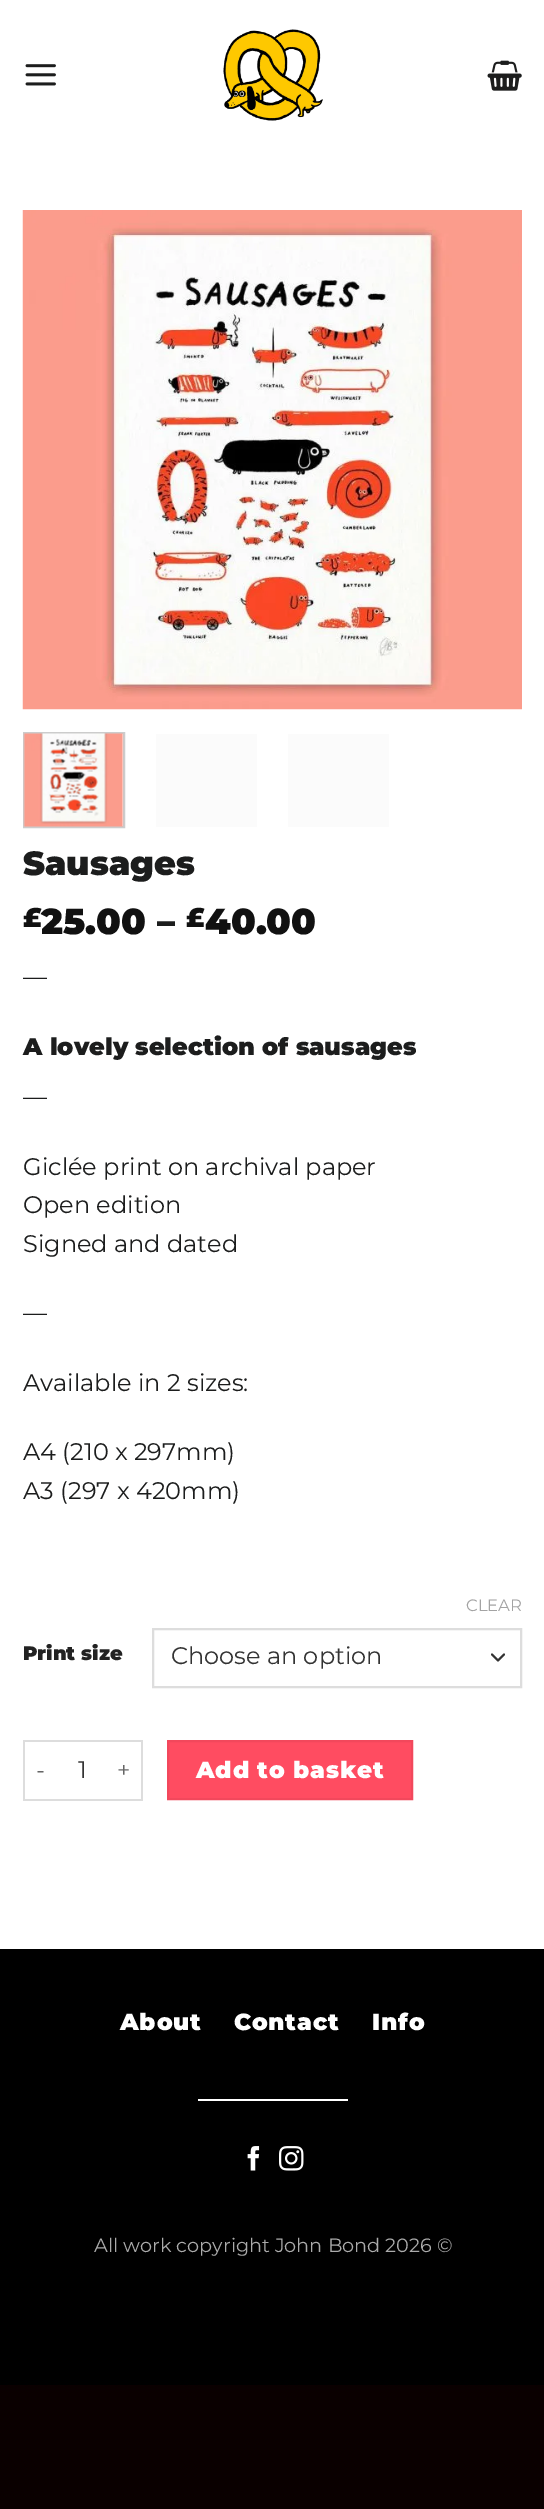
%!PS-Adobe-3.0
%%BoundingBox: 0 0 544 2509
%%LanguageLevel: 3
%%Pages: 1
%%EndComments
%%BeginProlog
/drawimage { 5 dict begin { /h /w /y /x /name } { exch def } forall
  gsave x y translate w h scale
  w h 8 [w 0 0 h 0 0] name (r) file false 3 colorimage grestore end } def
%%EndProlog
%%BeginSetup
<< /PageSize [544 2509] >> setpagedevice
%%EndSetup
%%Page: 1 1
0 2509 translate 1 -1 scale
4 setmiterlimit
0.039 0 0 setrgbcolor
0 0 544 2509 rectfill
1 setgray
0 0 544 1949 rectfill
(images/1.raw) 25 64 31 22 drawimage
(images/2.raw) 223 29 100 92 drawimage
(images/3.raw) 487 60 35 31 drawimage
(images/4.raw) 22 210 500 500 drawimage
0.8 setgray
2 setlinewidth
24 733 100 94 rectstroke
(images/5.raw) 23 733 101 94 drawimage
0.984 setgray
156 734 101 93 rectfill
288 734 101 93 rectfill
0.2 setgray
1 setlinecap
1 setlinejoin
newpath 492 1654.5 moveto 498 1660.5 lineto 504 1654.5 lineto stroke
0.867 setgray
0 setlinecap
0 setlinejoin
153 1629 368 58 rectstroke
23 1740 120 2 rectfill
23 1799 84 2 rectfill
23 1740 2 60 rectfill
141 1740 2 60 rectfill
107 1799 36 2 rectfill
1 0.298 0.38 setrgbcolor
newpath 168 1741 moveto 412 1741 lineto 412 1799 lineto 168 1799 lineto closepath gsave fill grestore
0.949 0.282 0.361 setrgbcolor
stroke
0 setgray
0 1949 544 436 rectfill
1 setgray
198 2099 150 2 rectfill
(images/6.raw) 247 2146 13 25 drawimage
(images/7.raw) 279 2146 25 25 drawimage
/Montserrat-Black [33.5 0 0 -33.5 0 0] selectfont
0.11 0.114 0.114 setrgbcolor
23 875 moveto (Sausages) show
/Montserrat-Black [27 0 0 -27 0 0] selectfont
0.067 setgray
23 927 moveto (£) show
/Montserrat-Black [36 0 0 -36 0 0] selectfont
41 934 moveto (25.00) show
0.11 0.114 0.114 setrgbcolor
157 934 moveto (–) show
/Montserrat-Black [27 0 0 -27 0 0] selectfont
0.067 setgray
186 927 moveto (£) show
/Montserrat-Black [36 0 0 -36 0 0] selectfont
205 934 moveto (40.00) show
/Montserrat-Regular [24 0 0 -24 0 0] selectfont
0.11 0.114 0.114 setrgbcolor
23 985 moveto (—) show
/Montserrat-Black [24 0 0 -24 0 0] selectfont
23 1055 moveto (A lovely selection of sausages) show
/Montserrat-Regular [24 0 0 -24 0 0] selectfont
23 1105 moveto (—) show
23 1175 moveto (Giclée print on archival paper) show
23 1213 moveto (Open edition) show
23 1252 moveto (Signed and dated) show
23 1321 moveto (—) show
23 1391 moveto (Available in 2 sizes:) show
23 1460 moveto (A4 \(210 x 297mm\)) show
23 1499 moveto (A3 \(297 x 420mm\)) show
/Montserrat-Black [19.5 0 0 -19.5 0 0] selectfont
0.133 setgray
23 1660 moveto (Print size) show
/Montserrat-Regular [16.5 0 0 -16.5 0 0] selectfont
0.639 setgray
466 1611 moveto (CLEAR) show
/Montserrat-Regular [24 0 0 -24 0 0] selectfont
0.2 setgray
171 1664 moveto (Choose an option) show
/Montserrat-Regular [23.25 0 0 -23.25 0 0] selectfont
0.4 setgray
36 1778 moveto 0.75 0 (-) ashow
/Montserrat-Regular [24 0 0 -24 0 0] selectfont
0.2 setgray
78 1778 moveto (1) show
/Montserrat-Regular [23.25 0 0 -23.25 0 0] selectfont
0.4 setgray
117 1778 moveto 0.75 0 (+) ashow
/Montserrat-Black [23.25 0 0 -23.25 0 0] selectfont
1 setgray
196 1778 moveto 0.75 0 (Add to basket) ashow
120 2030 moveto 0.75 0 (About) ashow
234 2030 moveto 0.75 0 (Contact) ashow
372 2030 moveto 0.75 0 (Info) ashow
/Montserrat-Regular [19.25 0 0 -19.25 0 0] selectfont
0.671 setgray
94 2252 moveto (All work copyright John Bond 2026 ©) show
showpage
%%EOF
